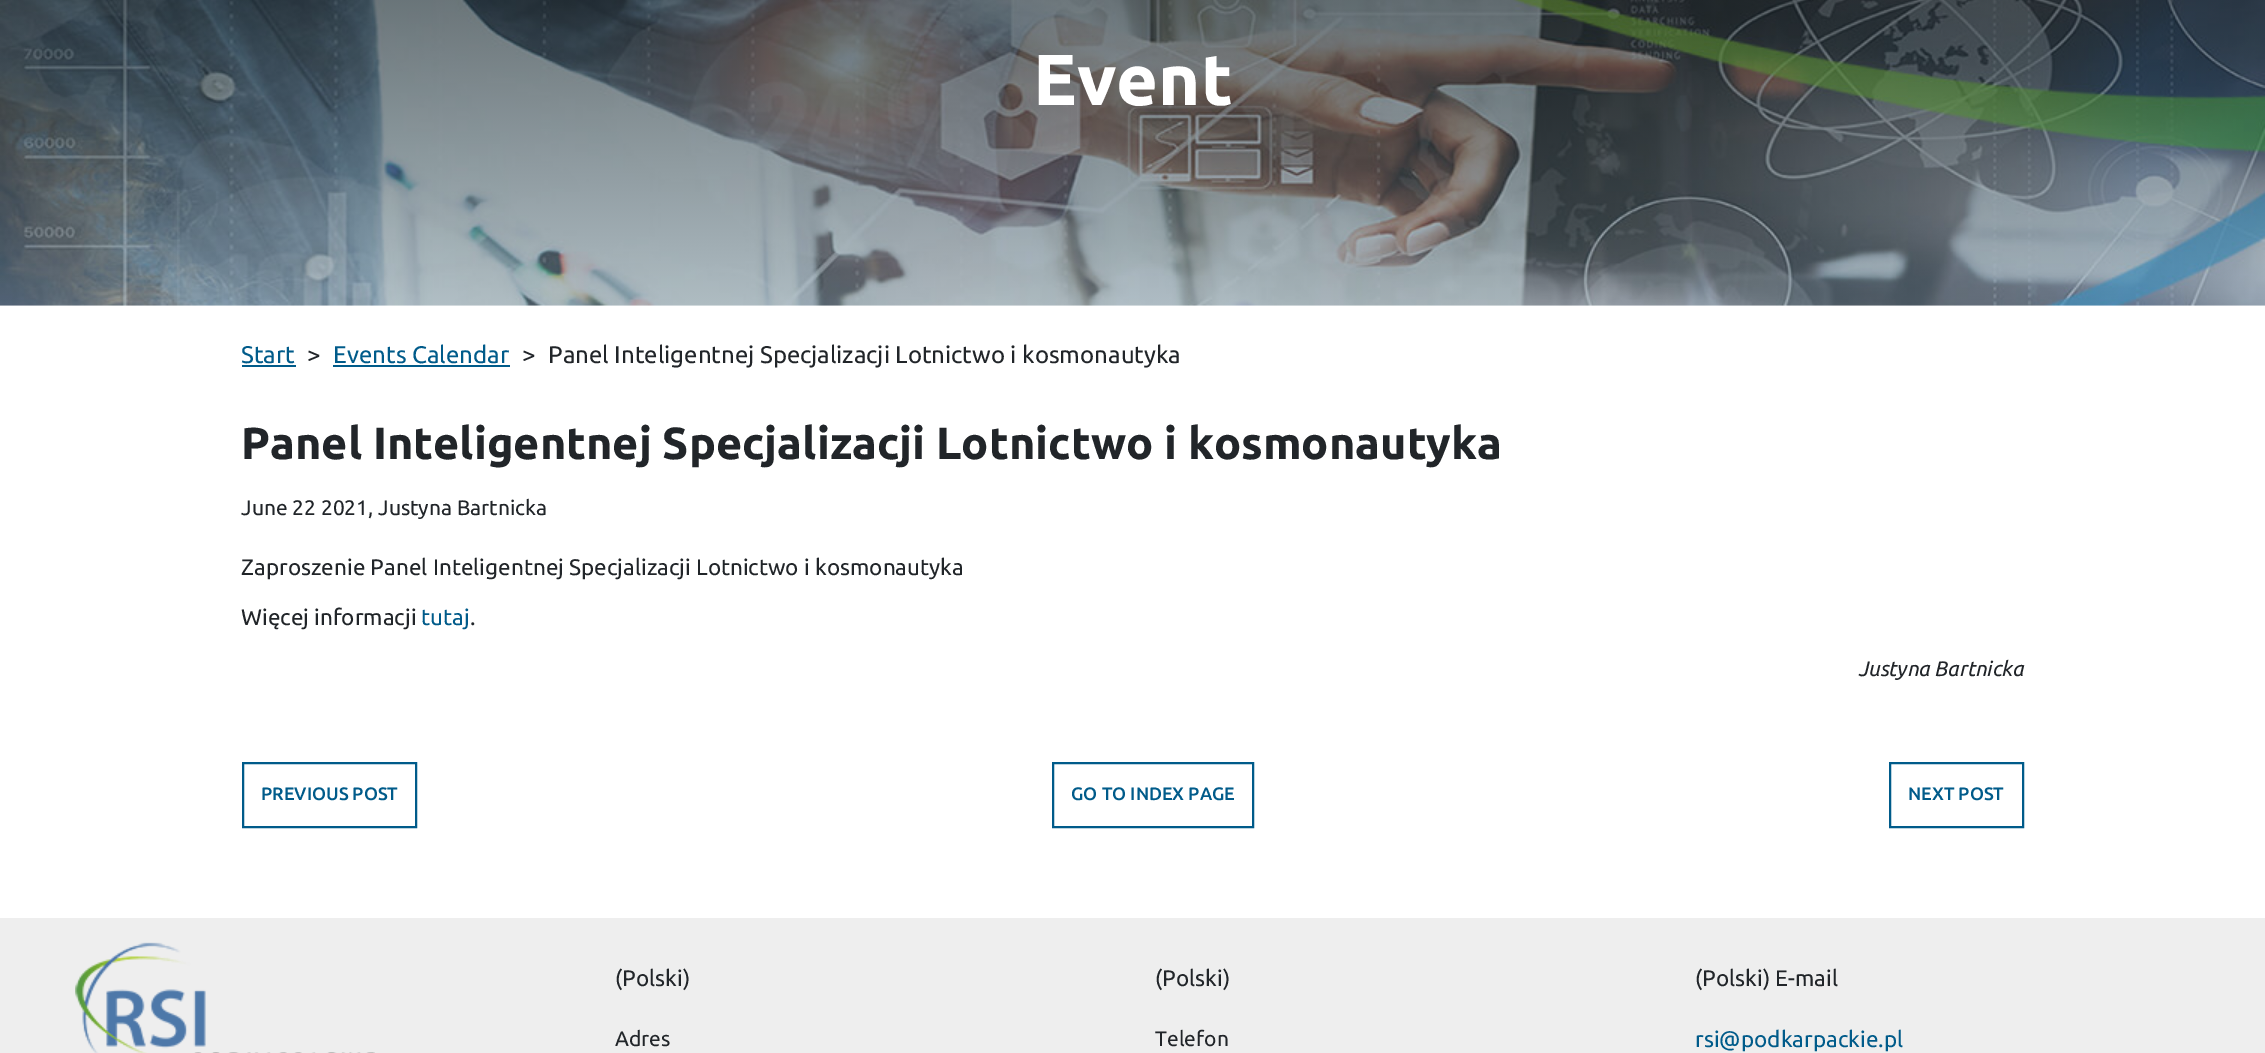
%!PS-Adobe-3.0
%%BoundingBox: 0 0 2265 1053
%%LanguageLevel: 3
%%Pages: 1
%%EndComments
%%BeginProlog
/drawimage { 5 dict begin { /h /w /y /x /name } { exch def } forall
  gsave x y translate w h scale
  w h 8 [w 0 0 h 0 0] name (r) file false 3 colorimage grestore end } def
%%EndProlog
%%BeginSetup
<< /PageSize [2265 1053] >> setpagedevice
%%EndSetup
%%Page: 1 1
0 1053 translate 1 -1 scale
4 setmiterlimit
1 setgray
0 0 2265 1053 rectfill
(images/1.raw) 0 0 2265 306 drawimage
0 0.357 0.541 setrgbcolor
242 365 54 2 rectfill
333 365 177 2 rectfill
2 setlinewidth
243 763 173 64 rectstroke
1053 763 200 64 rectstroke
1890 763 133 64 rectstroke
0.933 setgray
0 918 2265 135 rectfill
(images/2.raw) 75 942 300 111 drawimage
/Ubuntu-Bold [72 0 0 -72 0 0] selectfont
1 setgray
1033 105 moveto (Event) show
/Ubuntu-Regular [24 0 0 -24 0 0] selectfont
0 0.357 0.541 setrgbcolor
241 363 moveto (Start) show
0.129 0.145 0.161 setrgbcolor
307 363 moveto (>) show
0 0.357 0.541 setrgbcolor
333 363 moveto (Events Calendar) show
0.129 0.145 0.161 setrgbcolor
522 363 moveto (>) show
548 363 moveto (Panel Inteligentnej Specjalizacji Lotnictwo i kosmonautyka) show
/Ubuntu-Bold [44.95 0 0 -44.95 0 0] selectfont
241 459 moveto (Panel Inteligentnej Specjalizacji Lotnictwo i kosmonautyka) show
/Ubuntu-Regular [21 0 0 -21 0 0] selectfont
241 515 moveto (June 22 2021, Justyna Bartnicka) show
/Ubuntu-Regular [22.5 0 0 -22.5 0 0] selectfont
241 575 moveto (Zaproszenie Panel Inteligentnej Specjalizacji Lotnictwo i kosmonautyka) show
241 625 moveto (Więcej informacji) show
0 0.357 0.541 setrgbcolor
421 625 moveto (tutaj) show
0.129 0.145 0.161 setrgbcolor
470 625 moveto (.) show
/Ubuntu-Italic [21 0 0 -21 0 0] selectfont
1858 676 moveto (Justyna Bartnicka) show
/Ubuntu-Medium [18 0 0 -18 0 0] selectfont
0 0.357 0.541 setrgbcolor
261 800 moveto (PREVIOUS POST) show
1071 800 moveto (GO TO INDEX PAGE) show
1908 800 moveto (NEXT POST) show
/Ubuntu-Regular [22.5 0 0 -22.5 0 0] selectfont
0.129 0.145 0.161 setrgbcolor
615 986 moveto (\(Polski\)) show
/Ubuntu-Regular [21 0 0 -21 0 0] selectfont
615 1046 moveto (Adres) show
/Ubuntu-Regular [22.5 0 0 -22.5 0 0] selectfont
1155 986 moveto (\(Polski\)) show
/Ubuntu-Regular [21 0 0 -21 0 0] selectfont
1155 1046 moveto (Telefon) show
/Ubuntu-Regular [22.5 0 0 -22.5 0 0] selectfont
1695 986 moveto (\(Polski\) E-mail) show
0 0.357 0.541 setrgbcolor
1695 1047 moveto (rsi@podkarpackie.pl) show
showpage
%%EOF
